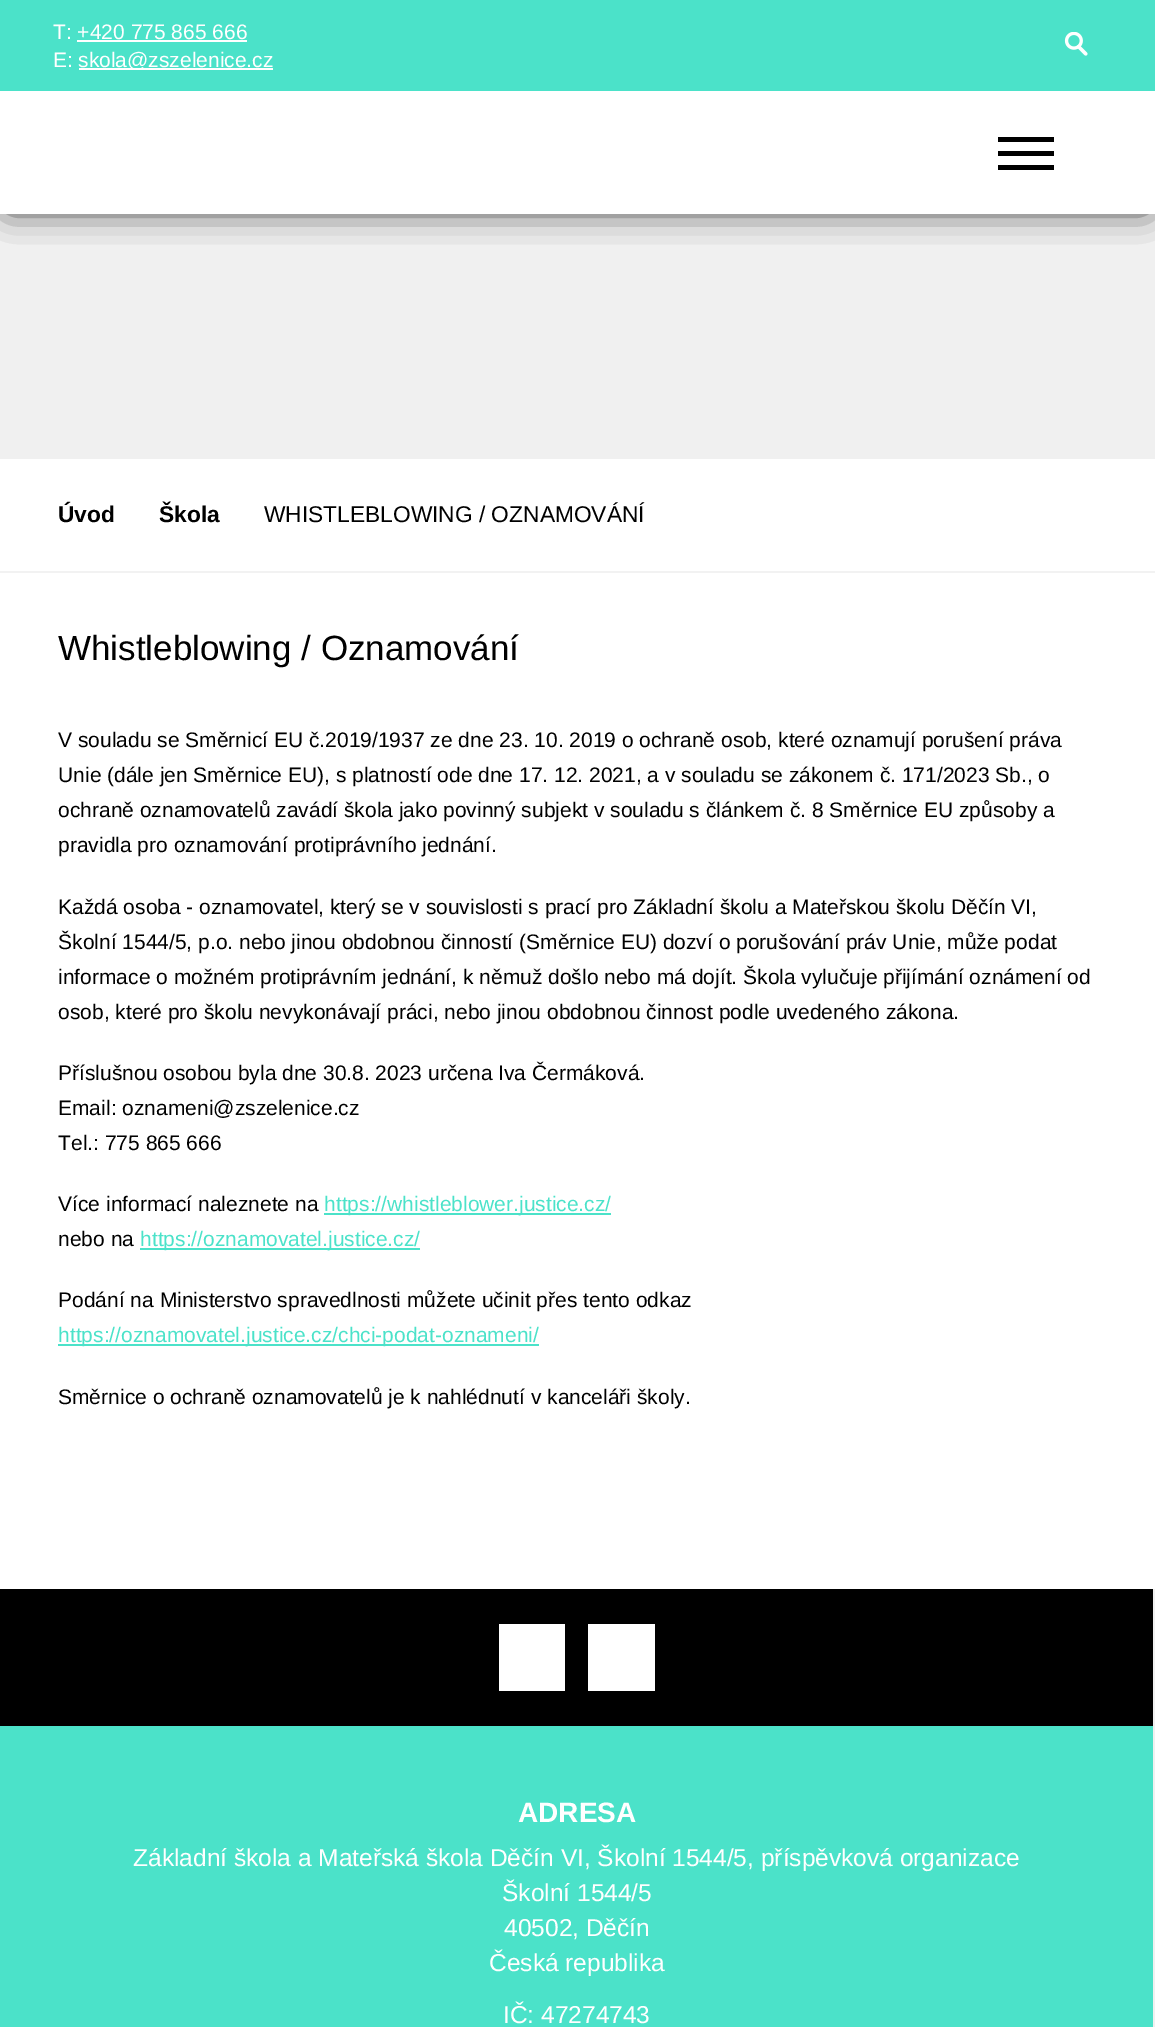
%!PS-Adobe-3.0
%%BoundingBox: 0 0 1155 2027
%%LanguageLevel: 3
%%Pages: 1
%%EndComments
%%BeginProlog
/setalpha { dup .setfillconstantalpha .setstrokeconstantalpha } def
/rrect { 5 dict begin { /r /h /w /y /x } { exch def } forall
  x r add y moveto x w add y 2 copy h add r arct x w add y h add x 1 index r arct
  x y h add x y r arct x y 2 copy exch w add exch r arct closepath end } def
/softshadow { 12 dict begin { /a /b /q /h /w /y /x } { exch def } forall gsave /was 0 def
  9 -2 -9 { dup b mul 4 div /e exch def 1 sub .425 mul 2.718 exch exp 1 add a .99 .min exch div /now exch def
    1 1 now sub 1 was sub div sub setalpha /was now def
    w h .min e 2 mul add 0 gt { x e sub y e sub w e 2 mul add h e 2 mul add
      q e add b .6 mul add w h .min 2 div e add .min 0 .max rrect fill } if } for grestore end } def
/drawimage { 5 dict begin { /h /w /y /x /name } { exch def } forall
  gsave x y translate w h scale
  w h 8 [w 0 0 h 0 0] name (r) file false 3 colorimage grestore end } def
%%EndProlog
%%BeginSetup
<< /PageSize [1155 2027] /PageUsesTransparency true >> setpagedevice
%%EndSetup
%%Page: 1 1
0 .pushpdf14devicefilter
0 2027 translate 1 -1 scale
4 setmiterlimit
1 setgray
0 0 1155 2027 rectfill
0.941 setgray
0 214 1155 245 rectfill
0 setgray
9 9 1137 196 0 17.5 0.6 softshadow
9 100 1137 105 0 17.5 0.6 softshadow
0.294 0.886 0.788 setrgbcolor
0 0 1155 91 rectfill
1 setgray
77 40 170 2 rectfill
79 68 194 2 rectfill
(images/1.raw) 1064 32 24 24 drawimage
0 91 1155 123 rectfill
0 setgray
998 151 56 5 rectfill
998 137 56 5 rectfill
998 165 56 5 rectfill
0.949 setgray
0 571 1155 2 rectfill
0.294 0.886 0.788 setrgbcolor
324 1213 287 2 rectfill
140 1248 280 2 rectfill
58 1344 481 2 rectfill
0 1726 1153 301 rectfill
0.941 setgray
1153 1589 2 438 rectfill
0 setgray
0 1589 1153 137 rectfill
1 setgray
499 1624 66 67 rectfill
588 1624 67 67 rectfill
/LiberationSans-Regular [21 0 0 -21 0 0] selectfont
53 39 moveto (T: +420 775 865 666) show
53 67 moveto (E:) show
78 67 moveto (skola@zszelenice.cz) show
/LiberationSans-Bold [22.75 0 0 -22.75 0 0] selectfont
0 setgray
58 522 moveto (Úvod) show
159 522 moveto (Škola) show
/LiberationSans-Regular [22.75 0 0 -22.75 0 0] selectfont
264 522 moveto (WHISTLEBLOWING / OZNAMOVÁNÍ) show
/LiberationSans-Regular [35 0 0 -35 0 0] selectfont
58 660 moveto (Whistleblowing / Oznamování) show
/LiberationSans-Regular [21 0 0 -21 0 0] selectfont
58 747 moveto (V souladu se Směrnicí EU č.2019/1937 ze dne 23. 10. 2019 o ochraně osob, které oznamují porušení práva) show
58 782 moveto (Unie \(dále jen Směrnice EU\), s platností ode dne 17. 12. 2021, a v souladu se zákonem č. 171/2023 Sb., o) show
58 817 moveto (ochraně oznamovatelů zavádí škola jako povinný subjekt v souladu s článkem č. 8 Směrnice EU způsoby a) show
58 852 moveto (pravidla pro oznamování protiprávního jednání.) show
58 914 moveto (Každá osoba - oznamovatel, který se v souvislosti s prací pro Základní školu a Mateřskou školu Děčín VI,) show
58 949 moveto (Školní 1544/5, p.o. nebo jinou obdobnou činností \(Směrnice EU\) dozví o porušování práv Unie, může podat) show
58 984 moveto (informace o možném protiprávním jednání, k němuž došlo nebo má dojít. Škola vylučuje přijímání oznámení od) show
58 1019 moveto (osob, které pro školu nevykonávají práci, nebo jinou obdobnou činnost podle uvedeného zákona.) show
58 1080 moveto (Příslušnou osobou byla dne 30.8. 2023 určena Iva Čermáková.) show
58 1115 moveto (Email: oznameni@zszelenice.cz) show
58 1150 moveto (Tel.: 775 865 666) show
58 1211 moveto (Více informací naleznete na) show
0.294 0.886 0.788 setrgbcolor
324 1211 moveto (https://whistleblower.justice.cz/) show
0 setgray
58 1246 moveto (nebo na) show
0.294 0.886 0.788 setrgbcolor
140 1246 moveto (https://oznamovatel.justice.cz/) show
0 setgray
58 1307 moveto (Podání na Ministerstvo spravedlnosti můžete učinit přes tento odkaz) show
0.294 0.886 0.788 setrgbcolor
58 1342 moveto (https://oznamovatel.justice.cz/chci-podat-oznameni/) show
0 setgray
58 1404 moveto (Směrnice o ochraně oznamovatelů je k nahlédnutí v kanceláři školy.) show
/LiberationSans-Bold [28 0 0 -28 0 0] selectfont
1 setgray
518 1822 moveto (ADRESA) show
/LiberationSans-Regular [24.5 0 0 -24.5 0 0] selectfont
133 1866 moveto (Základní škola a Mateřská škola Děčín VI, Školní 1544/5, příspěvková organizace) show
502 1901 moveto (Školní 1544/5) show
504 1936 moveto (40502, Děčín) show
489 1971 moveto (Česká republika) show
503 2023 moveto (IČ: 47274743) show
.poppdf14devicefilter showpage
%%EOF
